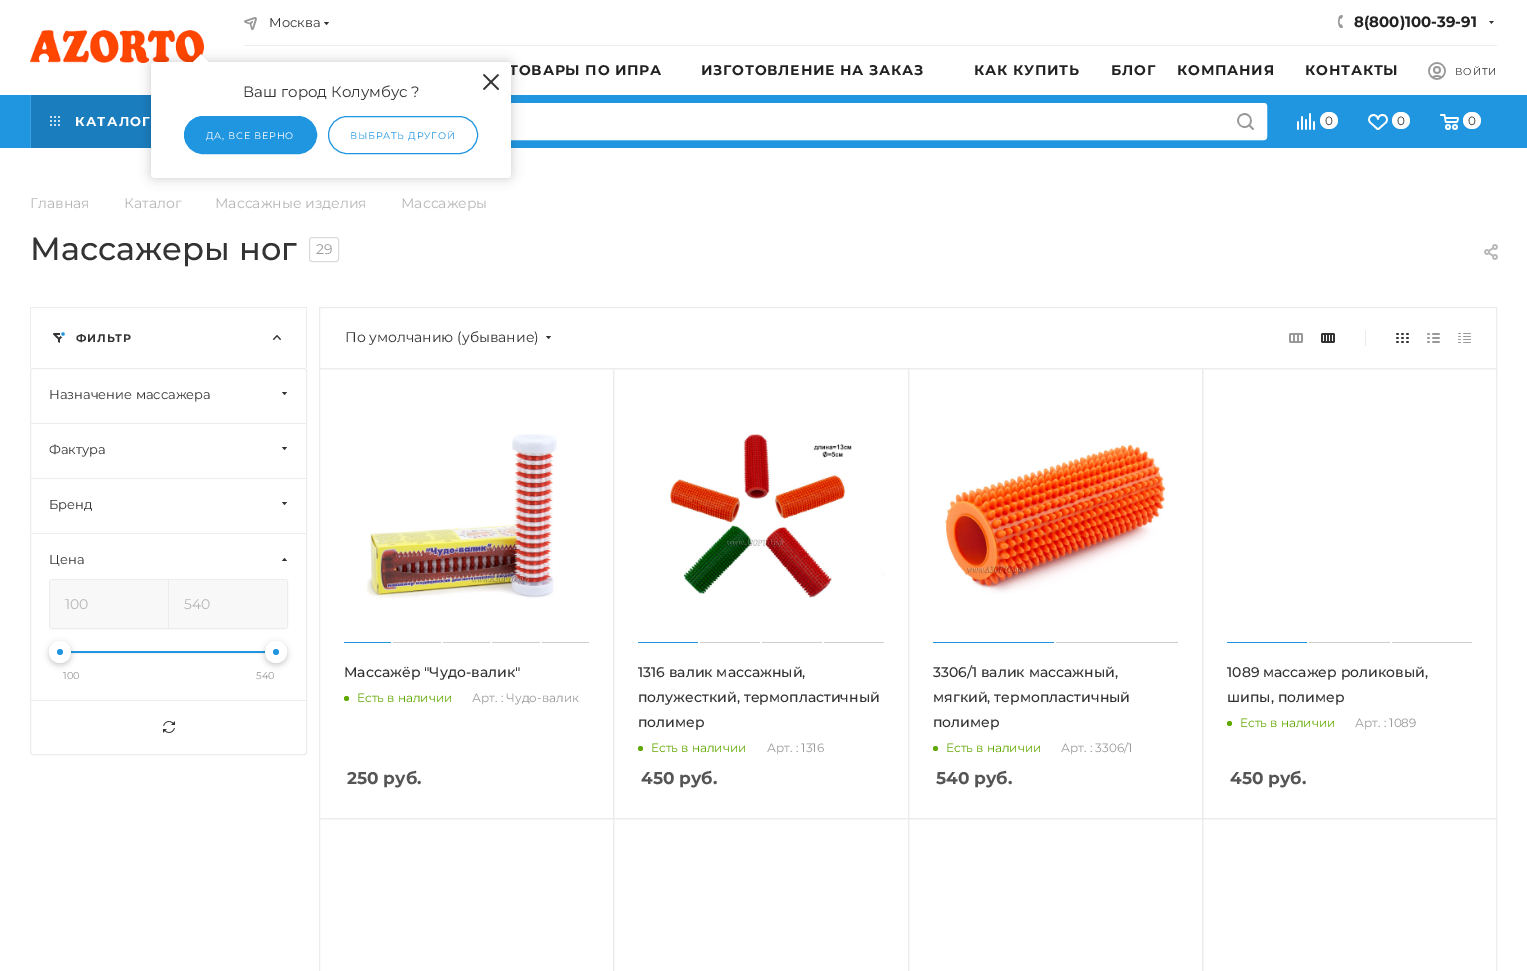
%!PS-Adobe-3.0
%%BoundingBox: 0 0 1527 971
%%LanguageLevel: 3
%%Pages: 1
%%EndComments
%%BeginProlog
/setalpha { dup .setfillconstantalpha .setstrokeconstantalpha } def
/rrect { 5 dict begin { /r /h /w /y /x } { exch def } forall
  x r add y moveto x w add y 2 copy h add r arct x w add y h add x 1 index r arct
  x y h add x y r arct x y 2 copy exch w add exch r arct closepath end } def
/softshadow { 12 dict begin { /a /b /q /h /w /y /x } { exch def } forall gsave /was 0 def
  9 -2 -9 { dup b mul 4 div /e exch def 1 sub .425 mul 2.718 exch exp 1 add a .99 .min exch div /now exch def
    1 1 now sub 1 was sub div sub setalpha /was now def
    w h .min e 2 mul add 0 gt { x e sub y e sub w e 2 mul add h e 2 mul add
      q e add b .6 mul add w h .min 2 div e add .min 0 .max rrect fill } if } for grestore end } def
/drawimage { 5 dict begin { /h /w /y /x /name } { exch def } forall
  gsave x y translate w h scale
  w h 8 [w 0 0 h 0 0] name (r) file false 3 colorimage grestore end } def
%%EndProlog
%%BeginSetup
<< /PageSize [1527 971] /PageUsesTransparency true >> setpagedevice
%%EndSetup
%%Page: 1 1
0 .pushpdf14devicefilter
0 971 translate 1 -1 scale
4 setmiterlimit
1 setgray
0 0 1527 971 rectfill
(images/1.raw) 30 30 174 33 drawimage
(images/2.raw) 244 17 13 13 drawimage
0.2 setgray
newpath 324 22 moveto 329 22 lineto 326.5 25 lineto closepath eofill
0.929 setgray
244 45 1253 1 rectfill
0.129 0.588 0.878 setrgbcolor
0 95 1527 53 rectfill
0.102 0.494 0.745 setrgbcolor
31 95 120 53 rectfill
1 setgray
239.5 103.5 1027 36 2.5 rrect gsave fill grestore
stroke
0 setgray
151 62 360 116 4 6 0.2 softshadow
(images/4.raw) 1338 15 5 13 drawimage
(images/5.raw) 1489 21 5 3 drawimage
(images/6.raw) 1428 62 18 18 drawimage
0.216 0.631 0.89 setrgbcolor
30 95 1 53 rectfill
(images/7.raw) 50 116 10 10 drawimage
(images/8.raw) 1237 113 17 17 drawimage
(images/9.raw) 1297 113 18 17 drawimage
1 setgray
1320 112 18 17 8.5 rrect fill
(images/10.raw) 1368 114 20 16 drawimage
1392 112 18 17 8.5 rrect fill
(images/11.raw) 1440 114 19 16 drawimage
1463 112 18 17 8.5 rrect fill
0.859 setgray
309.5 237.5 29 24 2.5 rrect stroke
(images/12.raw) 1484 244 14 16 drawimage
0.925 setgray
30 307 277 1 rectfill
306 307 1 61 rectfill
30 307 1 61 rectfill
(images/13.raw) 53 333 11 10 drawimage
0.129 0.588 0.878 setrgbcolor
newpath 63 334 2.5 0 360 arc closepath gsave fill grestore
1 setgray
stroke
(images/14.raw) 273 335 8 5 drawimage
0.925 setgray
30.5 368.5 276 386 2.5 rrect stroke
31 423 275 1 rectfill
0.2 setgray
newpath 282 392 moveto 287 392 lineto 284.5 395 lineto closepath eofill
0.925 setgray
31 478 275 1 rectfill
0.2 setgray
newpath 282 447 moveto 287 447 lineto 284.5 450 lineto closepath eofill
0.925 setgray
31 533 275 1 rectfill
0.2 setgray
newpath 282 502 moveto 287 502 lineto 284.5 505 lineto closepath eofill
0.925 setgray
31 700 275 1 rectfill
0.2 setgray
newpath 287 561 moveto 282 561 lineto 284.5 558 lineto closepath eofill
0.925 setgray
49.5 579.5 238 49 2.5 rrect stroke
0.973 setgray
50 580 118 48 rectfill
0.925 setgray
168 580 1 48 rectfill
0.973 setgray
169 580 118 48 rectfill
0.129 0.588 0.878 setrgbcolor
70 651 196 2 rectfill
0.949 setgray
70 653 196 1 rectfill
0 setgray
49 643 22 22 11 3 0.2 softshadow
1 setgray
newpath 60 652 11 0 360 arc closepath fill
0.129 0.588 0.878 setrgbcolor
newpath 60 652 3 0 360 arc closepath fill
0 setgray
265 643 22 22 11 3 0.2 softshadow
1 setgray
newpath 276 652 11 0 360 arc closepath fill
0.129 0.588 0.878 setrgbcolor
newpath 276 652 3 0 360 arc closepath fill
(images/15.raw) 163 721 12 12 drawimage
0.925 setgray
319.5 307.5 1177 61 rectstroke
0.2 setgray
newpath 546 336 moveto 551 336 lineto 548.5 339 lineto closepath eofill
(images/16.raw) 1289 333 14 10 drawimage
(images/17.raw) 1321 333 14 10 drawimage
0.925 setgray
1365 330 1 16 rectfill
(images/18.raw) 1396 333 13 10 drawimage
(images/19.raw) 1427 333 13 10 drawimage
(images/20.raw) 1458 333 13 10 drawimage
319.5 368.5 294 450 rectstroke
(images/21.raw) 366 434 191 165 drawimage
0.129 0.588 0.878 setrgbcolor
344 642 47 1 rectfill
0.804 setgray
393 642 48 1 rectfill
443 642 47 1 rectfill
492 642 48 1 rectfill
542 642 47 1 rectfill
0.373 0.659 0 setrgbcolor
newpath 346.5 698.5 2.5 0 360 arc closepath fill
0.925 setgray
613.5 368.5 295 450 rectstroke
(images/22.raw) 670 434 214 164 drawimage
0.129 0.588 0.878 setrgbcolor
638 642 60 1 rectfill
0.804 setgray
700 642 60 1 rectfill
762 642 60 1 rectfill
824 642 60 1 rectfill
0.373 0.659 0 setrgbcolor
newpath 640.5 748.5 2.5 0 360 arc closepath fill
0.925 setgray
908.5 368.5 294 450 rectstroke
(images/23.raw) 945 444 221 150 drawimage
0.129 0.588 0.878 setrgbcolor
933 642 121 1 rectfill
0.804 setgray
1056 642 122 1 rectfill
0.373 0.659 0 setrgbcolor
newpath 935.5 748.5 2.5 0 360 arc closepath fill
0.925 setgray
1202.5 368.5 294 450 rectstroke
0.129 0.588 0.878 setrgbcolor
1227 642 80 1 rectfill
0.804 setgray
1309 642 81 1 rectfill
1392 642 80 1 rectfill
0.373 0.659 0 setrgbcolor
newpath 1229.5 723.5 2.5 0 360 arc closepath fill
0.925 setgray
319.5 818.5 294 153 rectstroke
613.5 818.5 295 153 rectstroke
908.5 818.5 294 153 rectstroke
1202.5 818.5 294 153 rectstroke
/Montserrat-Regular [13 0 0 -13 0 0] selectfont
0.2 setgray
269 27 moveto (Москва) show
/Montserrat-Bold [15 0 0 -15 0 0] selectfont
0.133 setgray
1354 27 moveto (8\(800\)100-39-91) show
/Montserrat-Bold [14 0 0 -14 0 0] selectfont
509 75 moveto 0.8 0 (ТОВАРЫ ПО ИПРА) ashow
1 setgray
151 62 360 116 4 rrect fill
(images/3.raw) 483 74 16 16 drawimage
0.05 setalpha
0 setgray
newpath 211 63 moveto 191 63 lineto 201 53 lineto closepath fill
1 setalpha
1 setgray
newpath 211 64 moveto 191 64 lineto 201 54 lineto closepath fill
0.129 0.588 0.878 setrgbcolor
328.5 116.5 149 37 18.5 rrect stroke
/Montserrat-Regular [9.5 0 0 -9.5 0 0] selectfont
350 139 moveto 0.8 0 (ВЫБРАТЬ ДРУГОЙ) ashow
184.5 116.5 132 37 18.5 rrect gsave fill grestore
stroke
1 setgray
206 139 moveto 0.8 0 (ДА, ВСЕ ВЕРНО) ashow
/Montserrat-Regular [15 0 0 -15 0 0] selectfont
0.2 setgray
243 97 moveto (Ваш город Колумбус ?) show
/Montserrat-Bold [14 0 0 -14 0 0] selectfont
0.133 setgray
701 75 moveto 0.8 0 (ИЗГОТОВЛЕНИЕ НА ЗАКАЗ) ashow
974 75 moveto 0.8 0 (КАК КУПИТЬ) ashow
1111 75 moveto 0.8 0 (БЛОГ) ashow
1177 75 moveto 0.8 0 (КОМПАНИЯ) ashow
1305 75 moveto 0.8 0 (КОНТАКТЫ) ashow
/Montserrat-Regular [10 0 0 -10 0 0] selectfont
0.2 setgray
1455 75 moveto 0.8 0 (ВОЙТИ) ashow
/Montserrat-Bold [13 0 0 -13 0 0] selectfont
1 setgray
75 126 moveto 1.25 0 (КАТАЛОГ) ashow
/Montserrat-Regular [12 0 0 -12 0 0] selectfont
0.2 setgray
1325 125 moveto (0) show
1397 125 moveto (0) show
1468 125 moveto (0) show
/Montserrat-Regular [14 0 0 -14 0 0] selectfont
0.714 0.71 0.71 setrgbcolor
30 208 moveto (Главная) show
124 208 moveto (Каталог) show
215 208 moveto (Массажные изделия) show
401 208 moveto (Массажеры) show
/Montserrat-Medium [32 0 0 -32 0 0] selectfont
0.2 setgray
30 260 moveto (Массажеры ног) show
/Montserrat-Regular [14 0 0 -14 0 0] selectfont
0.6 setgray
316 254 moveto (29) show
/Montserrat-Bold [11 0 0 -11 0 0] selectfont
0.2 setgray
76 342 moveto 0.8 0 (ФИЛЬТР) ashow
/Montserrat-Regular [13 0 0 -13 0 0] selectfont
49 399 moveto (Назначение массажера) show
49 454 moveto (Фактура) show
49 509 moveto (Бренд) show
49 564 moveto (Цена) show
/Montserrat-Regular [14 0 0 -14 0 0] selectfont
0.714 0.71 0.71 setrgbcolor
65 609 moveto (100) show
184 609 moveto (540) show
/Montserrat-Regular [10 0 0 -10 0 0] selectfont
0.6 setgray
63 679 moveto (100) show
256 679 moveto (540) show
/Montserrat-Regular [14 0 0 -14 0 0] selectfont
0.2 setgray
345 342 moveto (По умолчанию \(убывание\)) show
/Montserrat-Medium [14 0 0 -14 0 0] selectfont
344 677 moveto (Массажёр "Чудо-валик") show
/Montserrat-Regular [12 0 0 -12 0 0] selectfont
0.373 0.659 0 setrgbcolor
357 702 moveto (Есть в наличии) show
0.6 setgray
472 702 moveto (Арт. : Чудо-валик) show
/Montserrat-Bold [17 0 0 -17 0 0] selectfont
0.333 setgray
347 784 moveto (250 руб.) show
/Montserrat-Medium [14 0 0 -14 0 0] selectfont
0.2 setgray
638 677 moveto (1316 валик массажный,) show
638 702 moveto (полужесткий, термопластичный) show
638 727 moveto (полимер) show
/Montserrat-Regular [12 0 0 -12 0 0] selectfont
0.373 0.659 0 setrgbcolor
651 752 moveto (Есть в наличии) show
0.6 setgray
767 752 moveto (Арт. : 1316) show
/Montserrat-Bold [17 0 0 -17 0 0] selectfont
0.333 setgray
641 784 moveto (450 руб.) show
/Montserrat-Medium [14 0 0 -14 0 0] selectfont
0.2 setgray
933 677 moveto (3306/1 валик массажный,) show
933 702 moveto (мягкий, термопластичный) show
933 727 moveto (полимер) show
/Montserrat-Regular [12 0 0 -12 0 0] selectfont
0.373 0.659 0 setrgbcolor
946 752 moveto (Есть в наличии) show
0.6 setgray
1061 752 moveto (Арт. : 3306/1) show
/Montserrat-Bold [17 0 0 -17 0 0] selectfont
0.333 setgray
936 784 moveto (540 руб.) show
/Montserrat-Medium [14 0 0 -14 0 0] selectfont
0.2 setgray
1227 677 moveto (1089 массажер роликовый,) show
1227 702 moveto (шипы, полимер) show
/Montserrat-Regular [12 0 0 -12 0 0] selectfont
0.373 0.659 0 setrgbcolor
1240 727 moveto (Есть в наличии) show
0.6 setgray
1355 727 moveto (Арт. : 1089) show
/Montserrat-Bold [17 0 0 -17 0 0] selectfont
0.333 setgray
1230 784 moveto (450 руб.) show
.poppdf14devicefilter showpage
%%EOF
